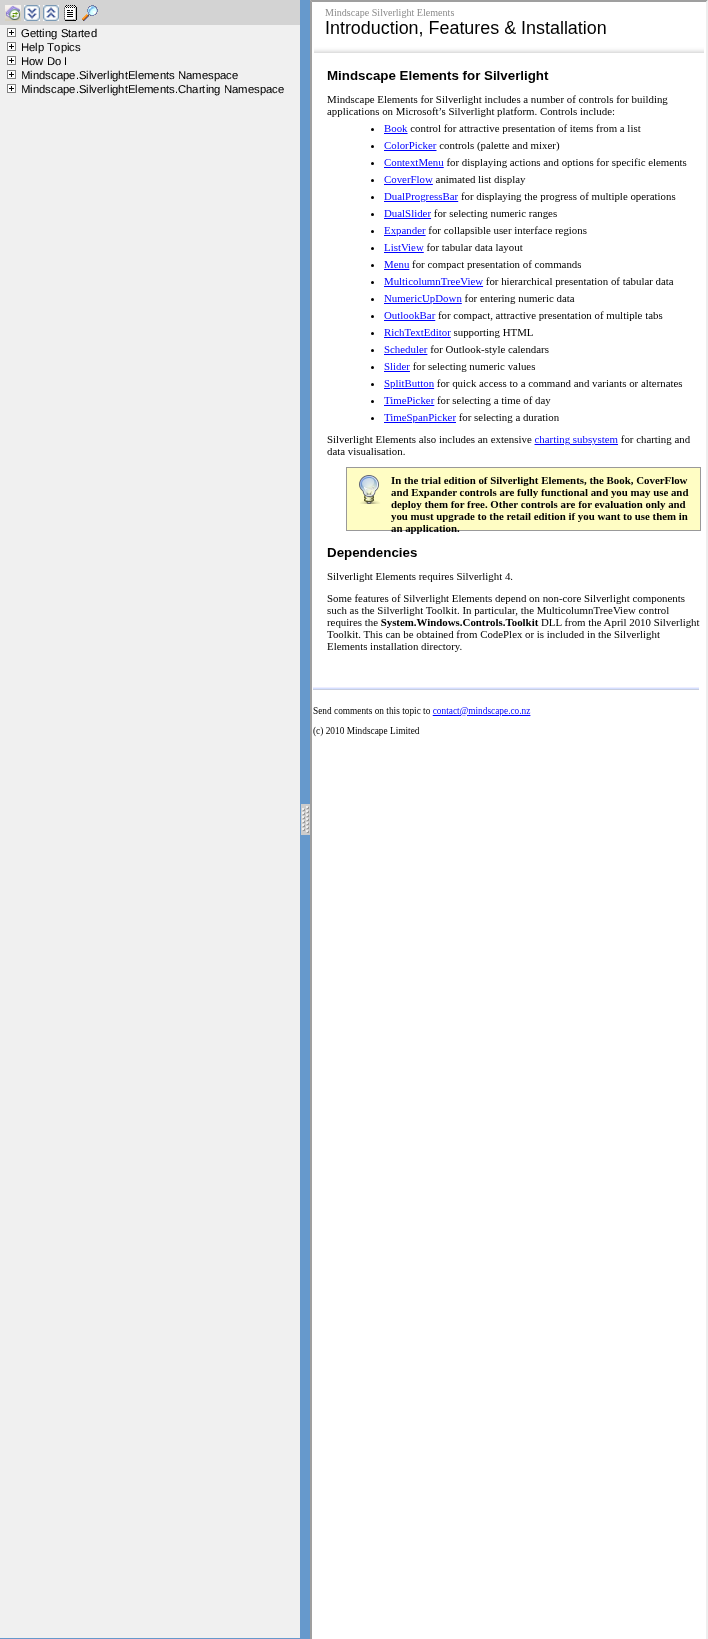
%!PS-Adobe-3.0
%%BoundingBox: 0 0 708 1639
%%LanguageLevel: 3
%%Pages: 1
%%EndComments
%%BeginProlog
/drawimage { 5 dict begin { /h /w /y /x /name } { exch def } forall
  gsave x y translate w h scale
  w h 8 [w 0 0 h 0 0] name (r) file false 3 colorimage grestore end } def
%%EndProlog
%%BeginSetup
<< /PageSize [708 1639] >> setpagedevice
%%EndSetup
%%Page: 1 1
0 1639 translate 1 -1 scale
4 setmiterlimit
0.4 0.6 0.8 setrgbcolor
0 0 708 1639 rectfill
0.827 setgray
0 0 300 25 rectfill
(images/1.raw) 5 5 16 16 drawimage
(images/2.raw) 24 5 16 16 drawimage
(images/3.raw) 43 5 16 16 drawimage
(images/4.raw) 64 5 13 16 drawimage
(images/5.raw) 82 5 16 16 drawimage
0.941 setgray
0 25 300 1613 rectfill
(images/6.raw) 7 28 9 9 drawimage
(images/6.raw) 7 42 9 9 drawimage
(images/6.raw) 7 56 9 9 drawimage
(images/6.raw) 7 70 9 9 drawimage
(images/6.raw) 7 84 9 9 drawimage
1 setgray
310 0 398 1639 rectfill
0.624 setgray
newpath 310 0 moveto 708 0 lineto 706 2 lineto 312 2 lineto closepath fill
0.933 setgray
newpath 708 0 moveto 708 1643 lineto 706 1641 lineto 706 2 lineto closepath fill
0.624 setgray
newpath 310 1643 moveto 310 0 lineto 312 2 lineto 312 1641 lineto closepath fill
(images/7.raw) 313 9 391 728 drawimage
(images/8.raw) 301 804 9 31 drawimage
/LiberationSans-Regular [11.3 0 0 -11.3 0 0] selectfont
0 setgray
21 37 moveto (Getting Started) show
21 51 moveto (Help Topics) show
21 65 moveto (How Do I) show
21 79 moveto (Mindscape.SilverlightElements Namespace) show
21 93 moveto (Mindscape.SilverlightElements.Charting Namespace) show
showpage
%%EOF
